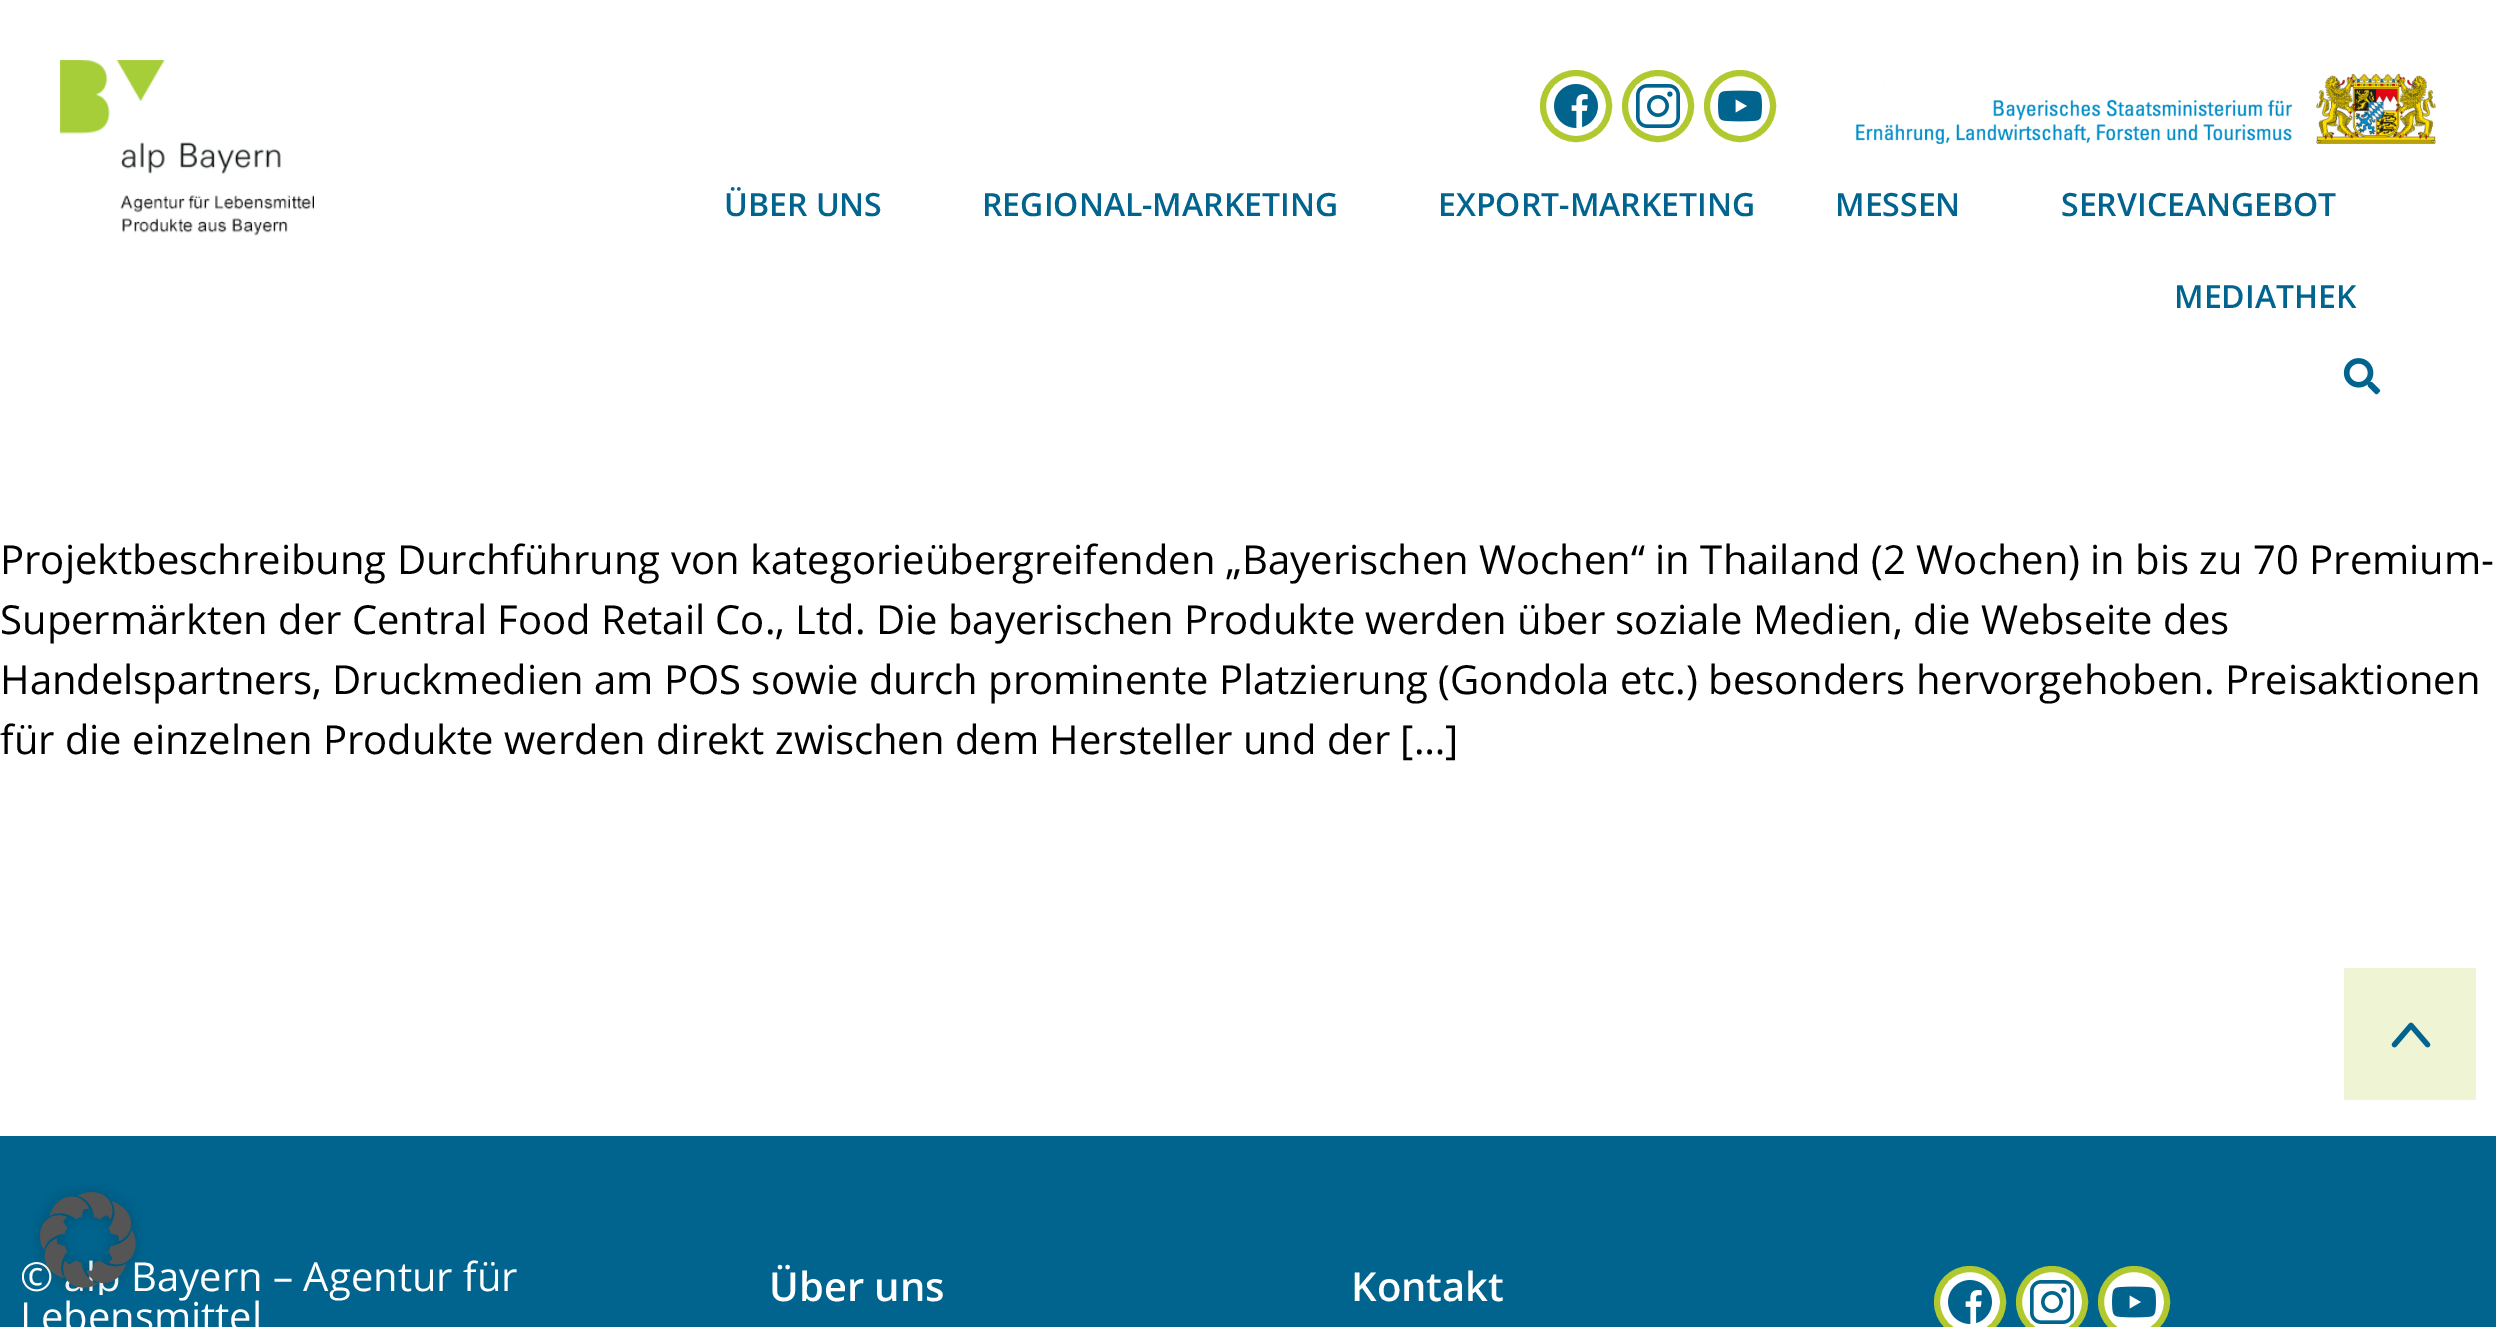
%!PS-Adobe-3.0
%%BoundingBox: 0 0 2496 1327
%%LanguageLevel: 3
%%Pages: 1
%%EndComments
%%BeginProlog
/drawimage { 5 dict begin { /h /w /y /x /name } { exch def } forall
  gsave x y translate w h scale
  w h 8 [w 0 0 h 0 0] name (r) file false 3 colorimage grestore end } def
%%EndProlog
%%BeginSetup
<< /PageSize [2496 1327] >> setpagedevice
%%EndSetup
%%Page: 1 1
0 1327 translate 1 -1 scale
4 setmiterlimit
1 setgray
0 0 2496 1327 rectfill
(images/1.raw) 60 60 254 176 drawimage
0.694 0.784 0.184 setrgbcolor
6 setlinewidth
newpath 1576 106 33 0 360 arc closepath stroke
(images/2.raw) 1554 84 44 44 drawimage
newpath 1658 106 33 0 360 arc closepath stroke
(images/3.raw) 1636 84 44 44 drawimage
newpath 1740 106 33 0 360 arc closepath stroke
(images/4.raw) 1718 90 44 32 drawimage
(images/5.raw) 1855 73 581 71 drawimage
(images/6.raw) 2343 358 38 37 drawimage
0.937 0.957 0.835 setrgbcolor
2344 968 132 132 rectfill
(images/8.raw) 2391 1022 40 26 drawimage
0 0.392 0.557 setrgbcolor
0 1136 2496 191 rectfill
1 setgray
newpath 1970 1302 33 0 360 arc closepath gsave fill grestore
0.694 0.784 0.184 setrgbcolor
stroke
(images/2.raw) 1948 1280 44 44 drawimage
1 setgray
newpath 2052 1302 33 0 360 arc closepath gsave fill grestore
0.694 0.784 0.184 setrgbcolor
stroke
(images/3.raw) 2030 1280 44 44 drawimage
1 setgray
newpath 2134 1302 33 0 360 arc closepath gsave fill grestore
0.694 0.784 0.184 setrgbcolor
stroke
(images/4.raw) 2112 1286 44 32 drawimage
/OpenSans-SemiBold [32 0 0 -32 0 0] selectfont
0 0.392 0.557 setrgbcolor
724 216 moveto (ÜBER UNS) show
982 216 moveto (REGIONAL-MARKETING) show
1438 216 moveto (EXPORT-MARKETING) show
1835 216 moveto (MESSEN) show
2061 216 moveto (SERVICEANGEBOT) show
2174 308 moveto (MEDIATHEK) show
/OpenSans-Regular [40 0 0 -40 0 0] selectfont
0 setgray
0 574 moveto (Projektbeschreibung Durchführung von kategorieübergreifenden „Bayerischen Wochen“ in Thailand \(2 Wochen\) in bis zu 70 Premium-) show
0 634 moveto (Supermärkten der Central Food Retail Co., Ltd. Die bayerischen Produkte werden über soziale Medien, die Webseite des) show
0 694 moveto (Handelspartners, Druckmedien am POS sowie durch prominente Platzierung \(Gondola etc.\) besonders hervorgehoben. Preisaktionen) show
0 754 moveto (für die einzelnen Produkte werden direkt zwischen dem Hersteller und der […]) show
1 setgray
20 1291 moveto (©) show
131 1291 moveto (Bayern – Agentur für) show
(images/7.raw) 33 1185 110 110 drawimage
20 1331 moveto (Lebensmittel) show
/OpenSans-SemiBold [40 0 0 -40 0 0] selectfont
769 1301 moveto (Über uns) show
1351 1301 moveto (Kontakt) show
showpage
%%EOF
